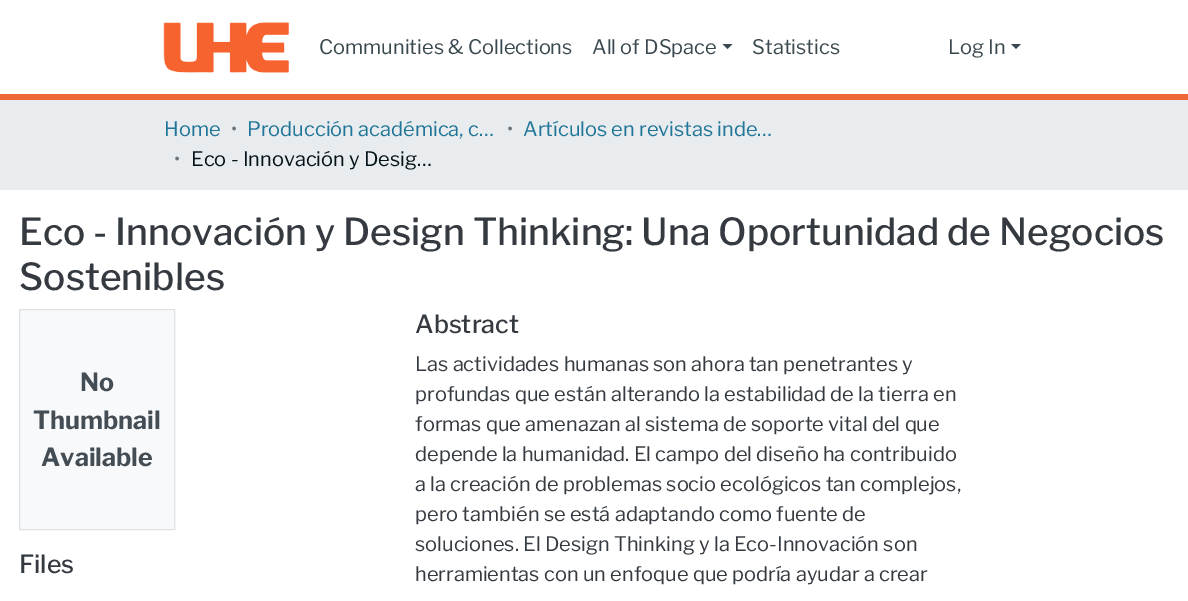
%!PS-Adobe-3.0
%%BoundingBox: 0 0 1188 601
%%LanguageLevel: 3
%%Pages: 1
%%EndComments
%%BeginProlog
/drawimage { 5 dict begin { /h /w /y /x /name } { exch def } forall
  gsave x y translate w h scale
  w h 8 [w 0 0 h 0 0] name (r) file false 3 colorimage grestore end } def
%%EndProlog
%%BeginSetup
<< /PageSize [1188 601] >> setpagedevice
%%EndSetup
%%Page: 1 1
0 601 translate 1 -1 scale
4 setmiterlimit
1 setgray
0 0 1188 601 rectfill
0.933 0.412 0.22 setrgbcolor
0 94 1188 6 rectfill
(images/1.raw) 163 22 126 51 drawimage
0.227 0.286 0.31 setrgbcolor
newpath 722.5 44 moveto 732.5 44 lineto 727.5 49 lineto closepath fill
newpath 1011 44 moveto 1021 44 lineto 1016 49 lineto closepath fill
0.914 0.925 0.937 setrgbcolor
0 100 1188 90 rectfill
0.973 0.976 0.98 setrgbcolor
newpath 19.5 309.5 moveto 174.5 309.5 lineto 174.5 529.5 lineto 19.5 529.5 lineto closepath gsave fill grestore
0.871 0.886 0.902 setrgbcolor
stroke
/LibreFranklin-Regular [20 0 0 -20 0 0] selectfont
0.227 0.286 0.31 setrgbcolor
319 54 moveto (Communities & Collections) show
592 54 moveto (All of DSpace) show
752 54 moveto (Statistics) show
948 54 moveto (Log In) show
0.125 0.463 0.596 setrgbcolor
164 136 moveto (Home) show
0.424 0.459 0.49 setrgbcolor
231 136 moveto (•) show
0.125 0.463 0.596 setrgbcolor
247 136 moveto (Producción académica, c…) show
0.424 0.459 0.49 setrgbcolor
507 136 moveto (•) show
0.125 0.463 0.596 setrgbcolor
523 136 moveto (Artículos en revistas inde…) show
0.424 0.459 0.49 setrgbcolor
174 166 moveto (•) show
0.02 0.078 0.102 setrgbcolor
191 166 moveto (Eco - Innovación y Desig…) show
/LibreFranklin-Medium [37.2 0 0 -37.2 0 0] selectfont
0.204 0.227 0.251 setrgbcolor
19 245 moveto (Eco - Innovación y Design Thinking: Una Oportunidad de Negocios) show
19 290 moveto (Sostenibles) show
/LibreFranklin-Bold [25 0 0 -25 0 0] selectfont
0.267 0.298 0.329 setrgbcolor
80 391 moveto (No) show
33 429 moveto (Thumbnail) show
41 466 moveto (Available) show
/LibreFranklin-Medium [25 0 0 -25 0 0] selectfont
0.204 0.227 0.251 setrgbcolor
19 573 moveto (Files) show
415 333 moveto (Abstract) show
/LibreFranklin-Regular [20 0 0 -20 0 0] selectfont
415 371 moveto (Las actividades humanas son ahora tan penetrantes y) show
415 401 moveto (profundas que están alterando la estabilidad de la tierra en) show
415 431 moveto (formas que amenazan al sistema de soporte vital del que) show
415 461 moveto (depende la humanidad. El campo del diseño ha contribuido) show
415 491 moveto (a la creación de problemas socio ecológicos tan complejos,) show
415 521 moveto (pero también se está adaptando como fuente de) show
415 551 moveto (soluciones. El Design Thinking y la Eco-Innovación son) show
415 581 moveto (herramientas con un enfoque que podría ayudar a crear) show
showpage
%%EOF
